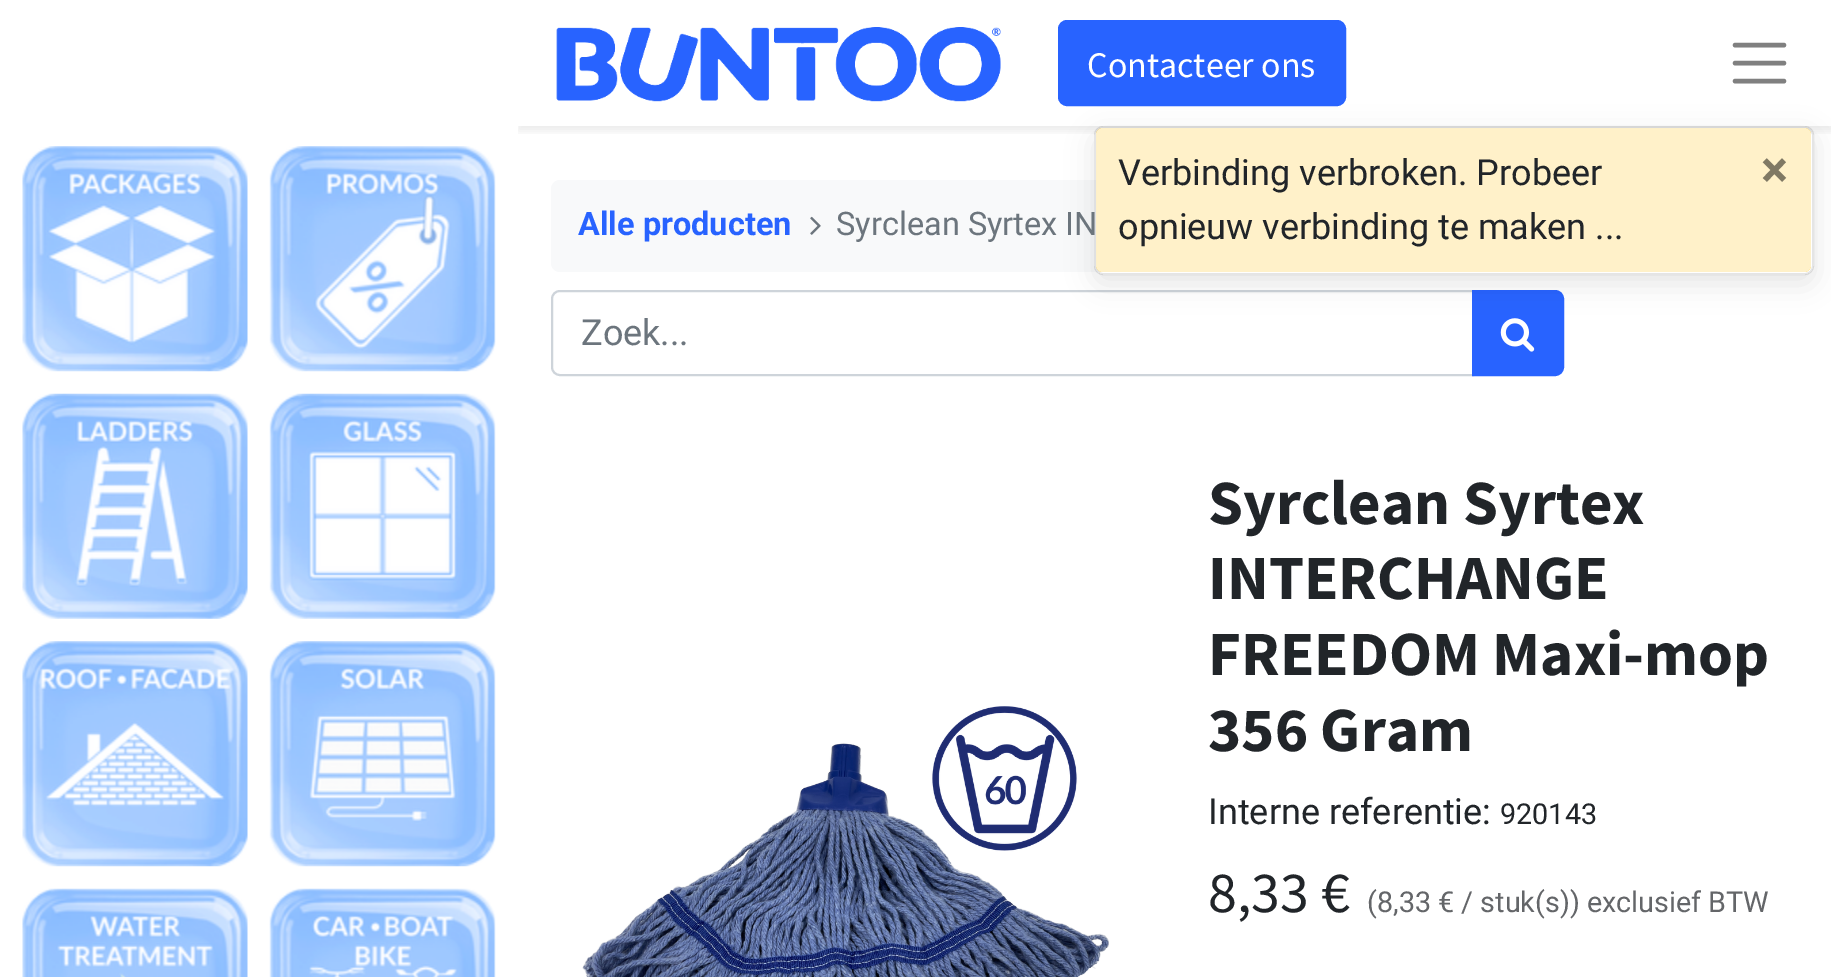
%!PS-Adobe-3.0
%%BoundingBox: 0 0 1831 977
%%LanguageLevel: 3
%%Pages: 1
%%EndComments
%%BeginProlog
/setalpha { dup .setfillconstantalpha .setstrokeconstantalpha } def
/rrect { 5 dict begin { /r /h /w /y /x } { exch def } forall
  x r add y moveto x w add y 2 copy h add r arct x w add y h add x 1 index r arct
  x y h add x y r arct x y 2 copy exch w add exch r arct closepath end } def
/softshadow { 12 dict begin { /a /b /q /h /w /y /x } { exch def } forall gsave /was 0 def
  9 -2 -9 { dup b mul 4 div /e exch def 1 sub .425 mul 2.718 exch exp 1 add a .99 .min exch div /now exch def
    1 1 now sub 1 was sub div sub setalpha /was now def
    w h .min e 2 mul add 0 gt { x e sub y e sub w e 2 mul add h e 2 mul add
      q e add b .6 mul add w h .min 2 div e add .min 0 .max rrect fill } if } for grestore end } def
/drawimage { 5 dict begin { /h /w /y /x /name } { exch def } forall
  gsave x y translate w h scale
  w h 8 [w 0 0 h 0 0] name (r) file false 3 colorimage grestore end } def
%%EndProlog
%%BeginSetup
<< /PageSize [1831 977] /PageUsesTransparency true >> setpagedevice
%%EndSetup
%%Page: 1 1
0 .pushpdf14devicefilter
0 977 translate 1 -1 scale
4 setmiterlimit
1 setgray
0 0 1831 977 rectfill
gsave
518 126 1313 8 rectclip
0 setgray
518 5 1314 126 0 4.5 0.07 softshadow
grestore
513 4 5 129 rectfill
(images/1.raw) 22 146 226 226 drawimage
(images/2.raw) 269 146 227 226 drawimage
(images/3.raw) 22 393 226 226 drawimage
(images/4.raw) 269 393 227 226 drawimage
(images/5.raw) 22 641 226 226 drawimage
(images/6.raw) 269 641 227 226 drawimage
(images/7.raw) 22 888 226 89 drawimage
(images/8.raw) 269 888 227 89 drawimage
(images/9.raw) 556 27 445 75 drawimage
0.157 0.388 1 setrgbcolor
1059 21 286 84 8 rrect gsave fill grestore
2 setlinewidth
stroke
0.502 setgray
4.5 setlinewidth
1 setlinecap
newpath 1735 45 moveto 1784 45 lineto 1735 63 moveto 1784 63 lineto 1735 81 moveto 1784 81 lineto stroke
0.973 0.976 0.98 setrgbcolor
551 180 1247 92 9 rrect fill
(images/10.raw) 810 216 11 19 drawimage
0.808 0.831 0.855 setrgbcolor
2 setlinewidth
0 setlinecap
newpath 560 291 moveto 1473 291 lineto 1473 375 lineto 560 375 lineto 555.5 375 552 371.5 552 367 curveto 552 299 lineto 552 294.5 555.5 291 560 291 curveto closepath stroke
0.157 0.388 1 setrgbcolor
newpath 1473 291 moveto 1555 291 lineto 1559.5 291 1563 294.5 1563 299 curveto 1563 367 lineto 1563 371.5 1559.5 375 1555 375 curveto 1473 375 lineto closepath gsave fill grestore
stroke
(images/11.raw) 1500 318 35 34 drawimage
(images/12.raw) 582 706 527 271 drawimage
gsave
newpath 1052 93 moveto 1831 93 lineto 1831 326 lineto 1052 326 lineto closepath 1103 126 moveto 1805 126 lineto 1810 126 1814 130 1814 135 curveto 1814 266 lineto 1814 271 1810 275 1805 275 curveto 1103 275 lineto 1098 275 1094 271 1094 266 curveto 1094 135 lineto 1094 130 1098 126 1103 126 curveto closepath eoclip newpath
0 setgray
1094 135 720 149 9 13.5 0.1 softshadow
grestore
1 0.757 0.027 setrgbcolor
1096 128 715 144 7 rrect fill
0.1 setalpha
0 setgray
1095 127 718 147 8 rrect stroke
0.78 setalpha
1 setgray
1096 128 715 144 7 rrect fill
/SourceSansPro-Regular [36 0 0 -36 0 0] selectfont
1 setalpha
1087 77 moveto (Contacteer ons) show
/Roboto-Bold [32.5 0 0 -32.5 0 0] selectfont
0.157 0.388 1 setrgbcolor
578 235 moveto (Alle producten) show
/Roboto-Regular [32.5 0 0 -32.5 0 0] selectfont
0.424 0.459 0.49 setrgbcolor
836 235 moveto (Syrclean Syrtex IN) show
/Roboto-Regular [36 0 0 -36 0 0] selectfont
581 345 moveto (Zoek...) show
/SourceSansPro-Bold [63 0 0 -63 0 0] selectfont
0.129 0.145 0.161 setrgbcolor
1208 524 moveto (Syrclean Syrtex) show
1208 599 moveto (INTERCHANGE) show
1208 675 moveto (FREEDOM Maxi-mop) show
1208 751 moveto (356 Gram) show
/Roboto-Regular [36 0 0 -36 0 0] selectfont
1208 824 moveto (Interne referentie:) show
/Roboto-Regular [28.75 0 0 -28.75 0 0] selectfont
1500 824 moveto (920143) show
/SourceSansPro-Regular [58 0 0 -58 0 0] selectfont
1208 912 moveto (8,33 €) show
/Roboto-Regular [28.75 0 0 -28.75 0 0] selectfont
0.392 0.4 0.412 setrgbcolor
1367 912 moveto (\(8,33 € / stuk\(s\)\) exclusief BTW) show
/Roboto-Regular [36 0 0 -36 0 0] selectfont
0.129 0.145 0.161 setrgbcolor
1118 185 moveto (Verbinding verbroken. Probeer) show
1118 239 moveto (opnieuw verbinding te maken ...) show
/Roboto-Bold [51 0 0 -51 0 0] selectfont
0.502 0.475 0.392 setrgbcolor
1761 187 moveto (×) show
.poppdf14devicefilter showpage
%%EOF
